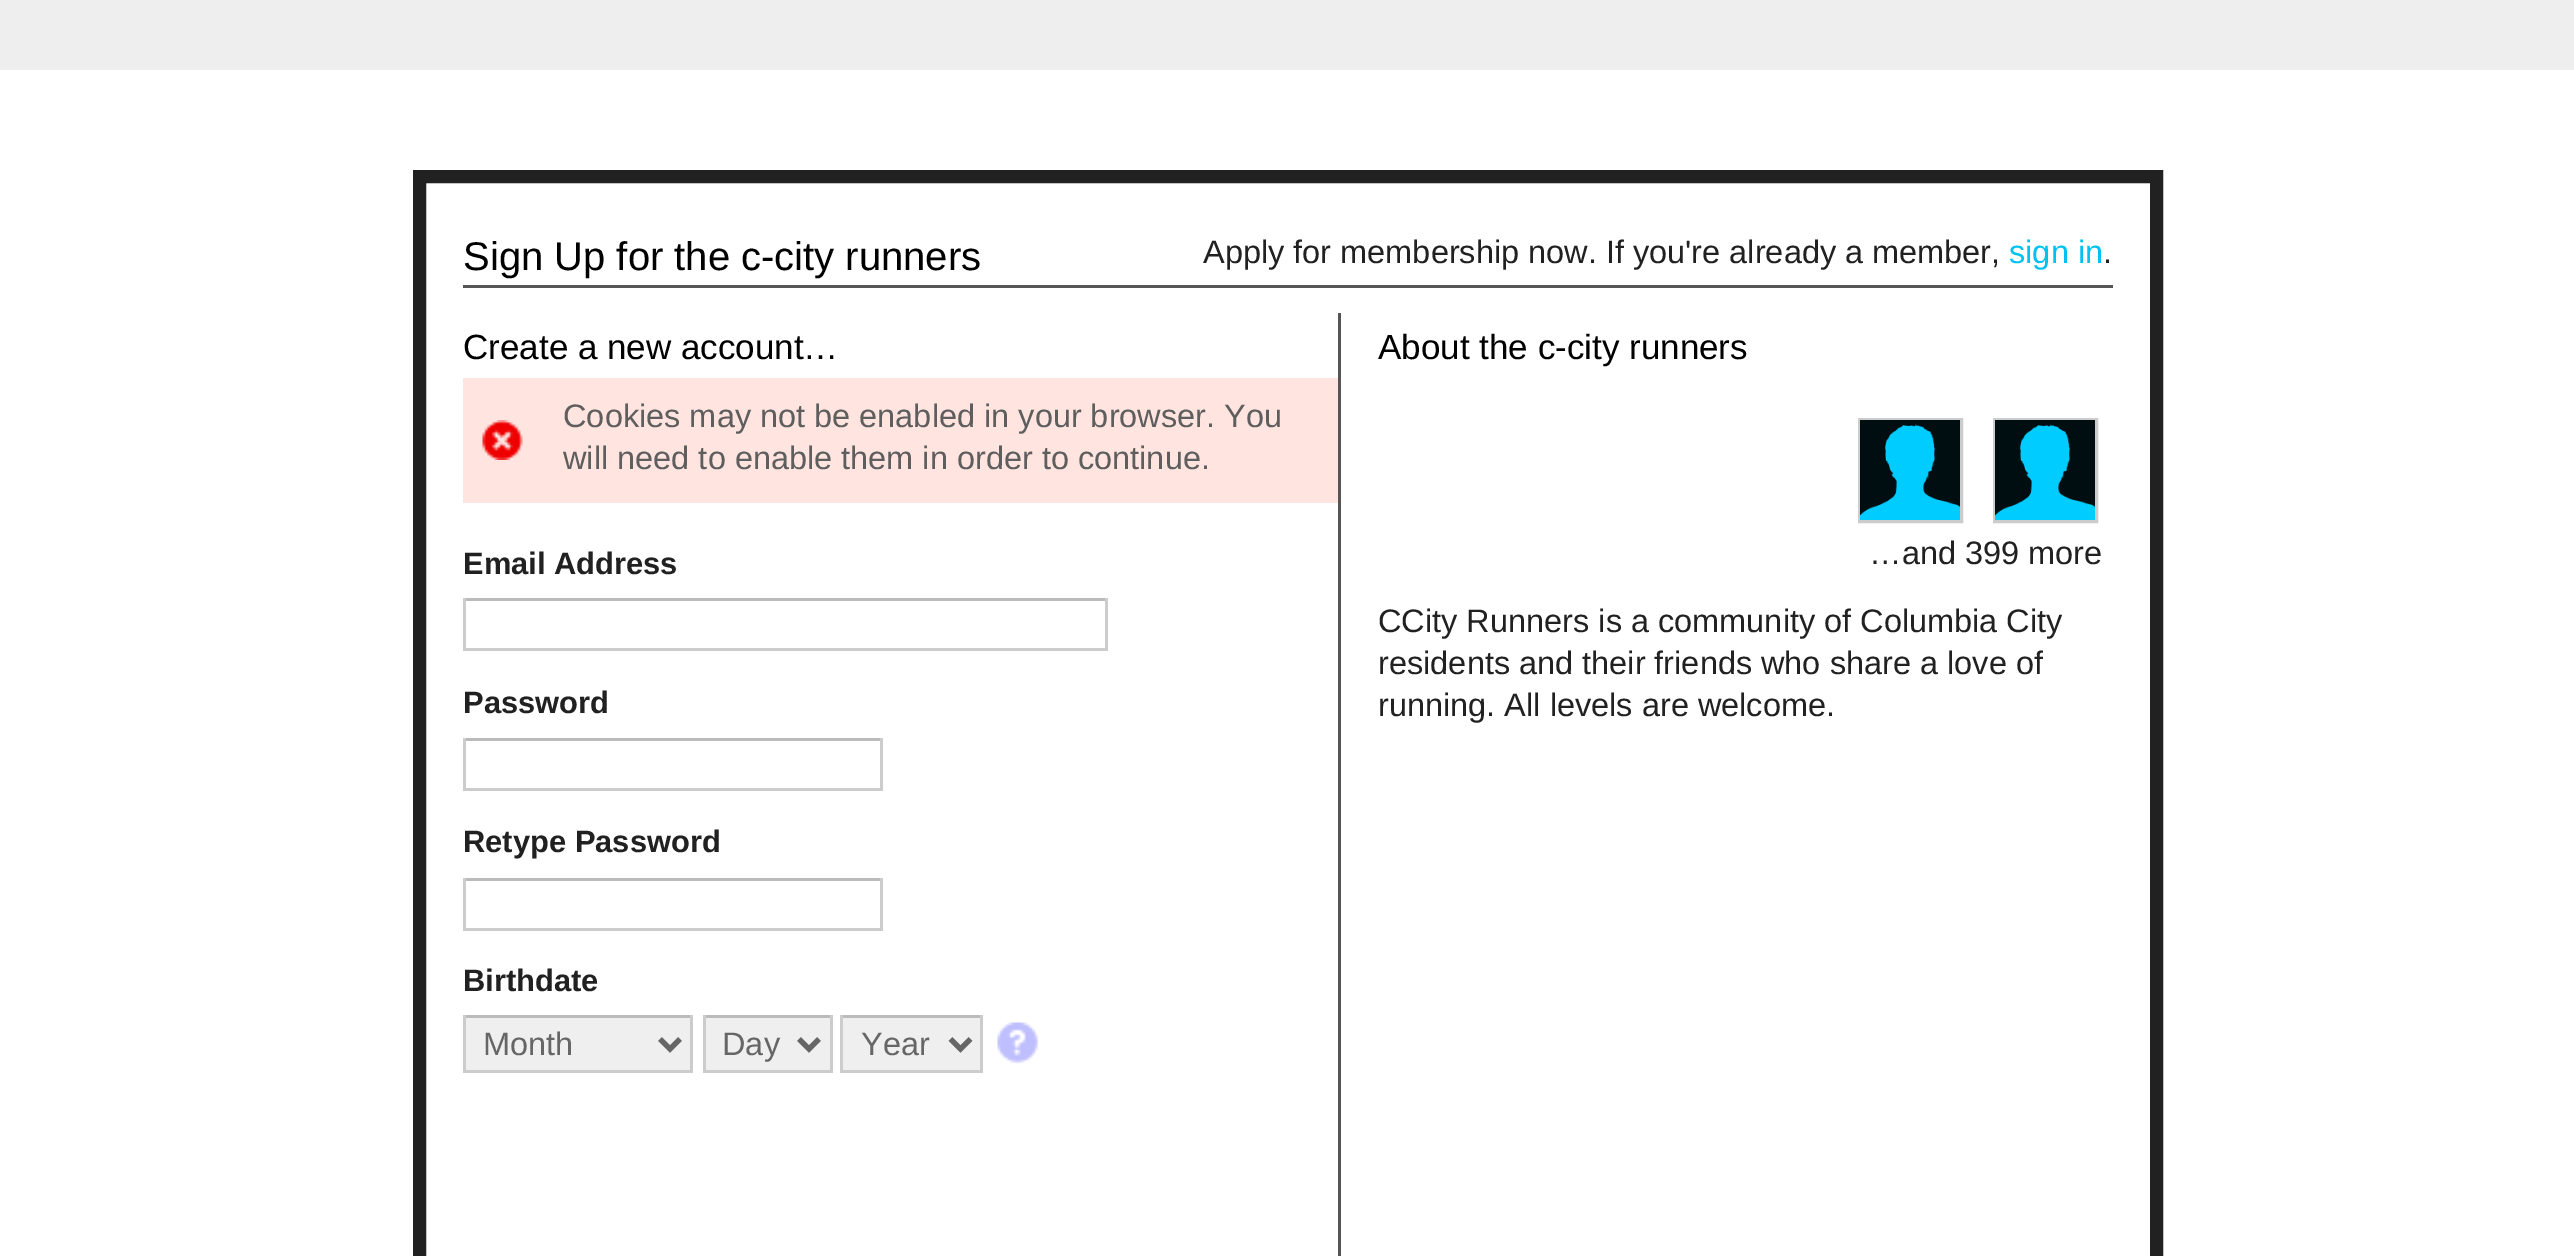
%!PS-Adobe-3.0
%%BoundingBox: 0 0 2574 1256
%%LanguageLevel: 3
%%Pages: 1
%%EndComments
%%BeginProlog
/drawimage { 5 dict begin { /h /w /y /x /name } { exch def } forall
  gsave x y translate w h scale
  w h 8 [w 0 0 h 0 0] name (r) file false 3 colorimage grestore end } def
%%EndProlog
%%BeginSetup
<< /PageSize [2574 1256] >> setpagedevice
%%EndSetup
%%Page: 1 1
0 1256 translate 1 -1 scale
4 setmiterlimit
1 setgray
0 0 2574 1256 rectfill
0.933 setgray
0 0 2574 70 rectfill
0.129 setgray
13 setlinewidth
419.5 176.5 1737 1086 rectstroke
0.333 setgray
463 285 1650 3 rectfill
1338 313 3 943 rectfill
1 0.894 0.875 setrgbcolor
463 378 875 125 rectfill
(images/1.raw) 482 420 41 40 drawimage
0.733 setgray
463 598 645 3 rectfill
0.8 setgray
1105 598 3 52 rectfill
463 648 645 3 rectfill
463 598 3 52 rectfill
0.733 setgray
463 738 420 3 rectfill
0.8 setgray
880 738 3 52 rectfill
463 788 420 3 rectfill
463 738 3 52 rectfill
0.733 setgray
463 878 420 3 rectfill
0.8 setgray
880 878 3 52 rectfill
463 928 420 3 rectfill
463 878 3 52 rectfill
0.937 setgray
466 1018 224 52 rectfill
0.733 setgray
463 1015 230 3 rectfill
0.8 setgray
690 1015 3 58 rectfill
463 1070 230 3 rectfill
463 1015 3 58 rectfill
0.4 setgray
5 setlinewidth
newpath 660 1039 moveto 670 1049 lineto 680 1039 lineto stroke
0.937 setgray
706 1018 124 52 rectfill
0.733 setgray
703 1015 130 3 rectfill
0.8 setgray
830 1015 3 58 rectfill
703 1070 130 3 rectfill
703 1015 3 58 rectfill
0.4 setgray
newpath 799 1039 moveto 809 1049 lineto 819 1039 lineto stroke
0.937 setgray
843 1018 137 52 rectfill
0.733 setgray
840 1015 143 3 rectfill
0.8 setgray
980 1015 3 58 rectfill
840 1070 143 3 rectfill
840 1015 3 58 rectfill
0.4 setgray
newpath 950.5 1039 moveto 960.5 1049 lineto 970.5 1039 lineto stroke
(images/2.raw) 997 1022 42 42 drawimage
0.8 setgray
3 setlinewidth
1859.5 419.5 102 102 rectstroke
(images/3.raw) 1860 420 100 100 drawimage
1994.5 419.5 102 102 rectstroke
(images/3.raw) 1995 420 100 100 drawimage
/LiberationSans-Regular [40 0 0 -40 0 0] selectfont
0 setgray
463 270 moveto (Sign Up for the c-city runners) show
/LiberationSans-Regular [32.5 0 0 -32.5 0 0] selectfont
0.129 setgray
1203 263 moveto (Apply for membership now. If you're already a member,) show
0 0.761 0.949 setrgbcolor
2009 263 moveto (sign in) show
0.129 setgray
2103 263 moveto (.) show
/LiberationSans-Regular [35 0 0 -35 0 0] selectfont
0 setgray
463 359 moveto (Create a new account…) show
/LiberationSans-Regular [32.5 0 0 -32.5 0 0] selectfont
0.369 setgray
563 427 moveto (Cookies may not be enabled in your browser. You) show
563 469 moveto (will need to enable them in order to continue.) show
/LiberationSans-Bold [30.9 0 0 -30.9 0 0] selectfont
0.129 setgray
463 574 moveto (Email Address) show
463 713 moveto (Password) show
463 852 moveto (Retype Password) show
463 991 moveto (Birthdate) show
/LiberationSans-Regular [32.5 0 0 -32.5 0 0] selectfont
0.4 setgray
483 1055 moveto (Month) show
722 1055 moveto (Day) show
861 1055 moveto (Year) show
/LiberationSans-Regular [35 0 0 -35 0 0] selectfont
0 setgray
1378 359 moveto (About the c-city runners) show
/LiberationSans-Regular [32.5 0 0 -32.5 0 0] selectfont
0.129 setgray
1869 564 moveto (…and 399 more) show
1378 632 moveto (CCity Runners is a community of Columbia City) show
1378 674 moveto (residents and their friends who share a love of) show
1378 716 moveto (running. All levels are welcome.) show
showpage
%%EOF
